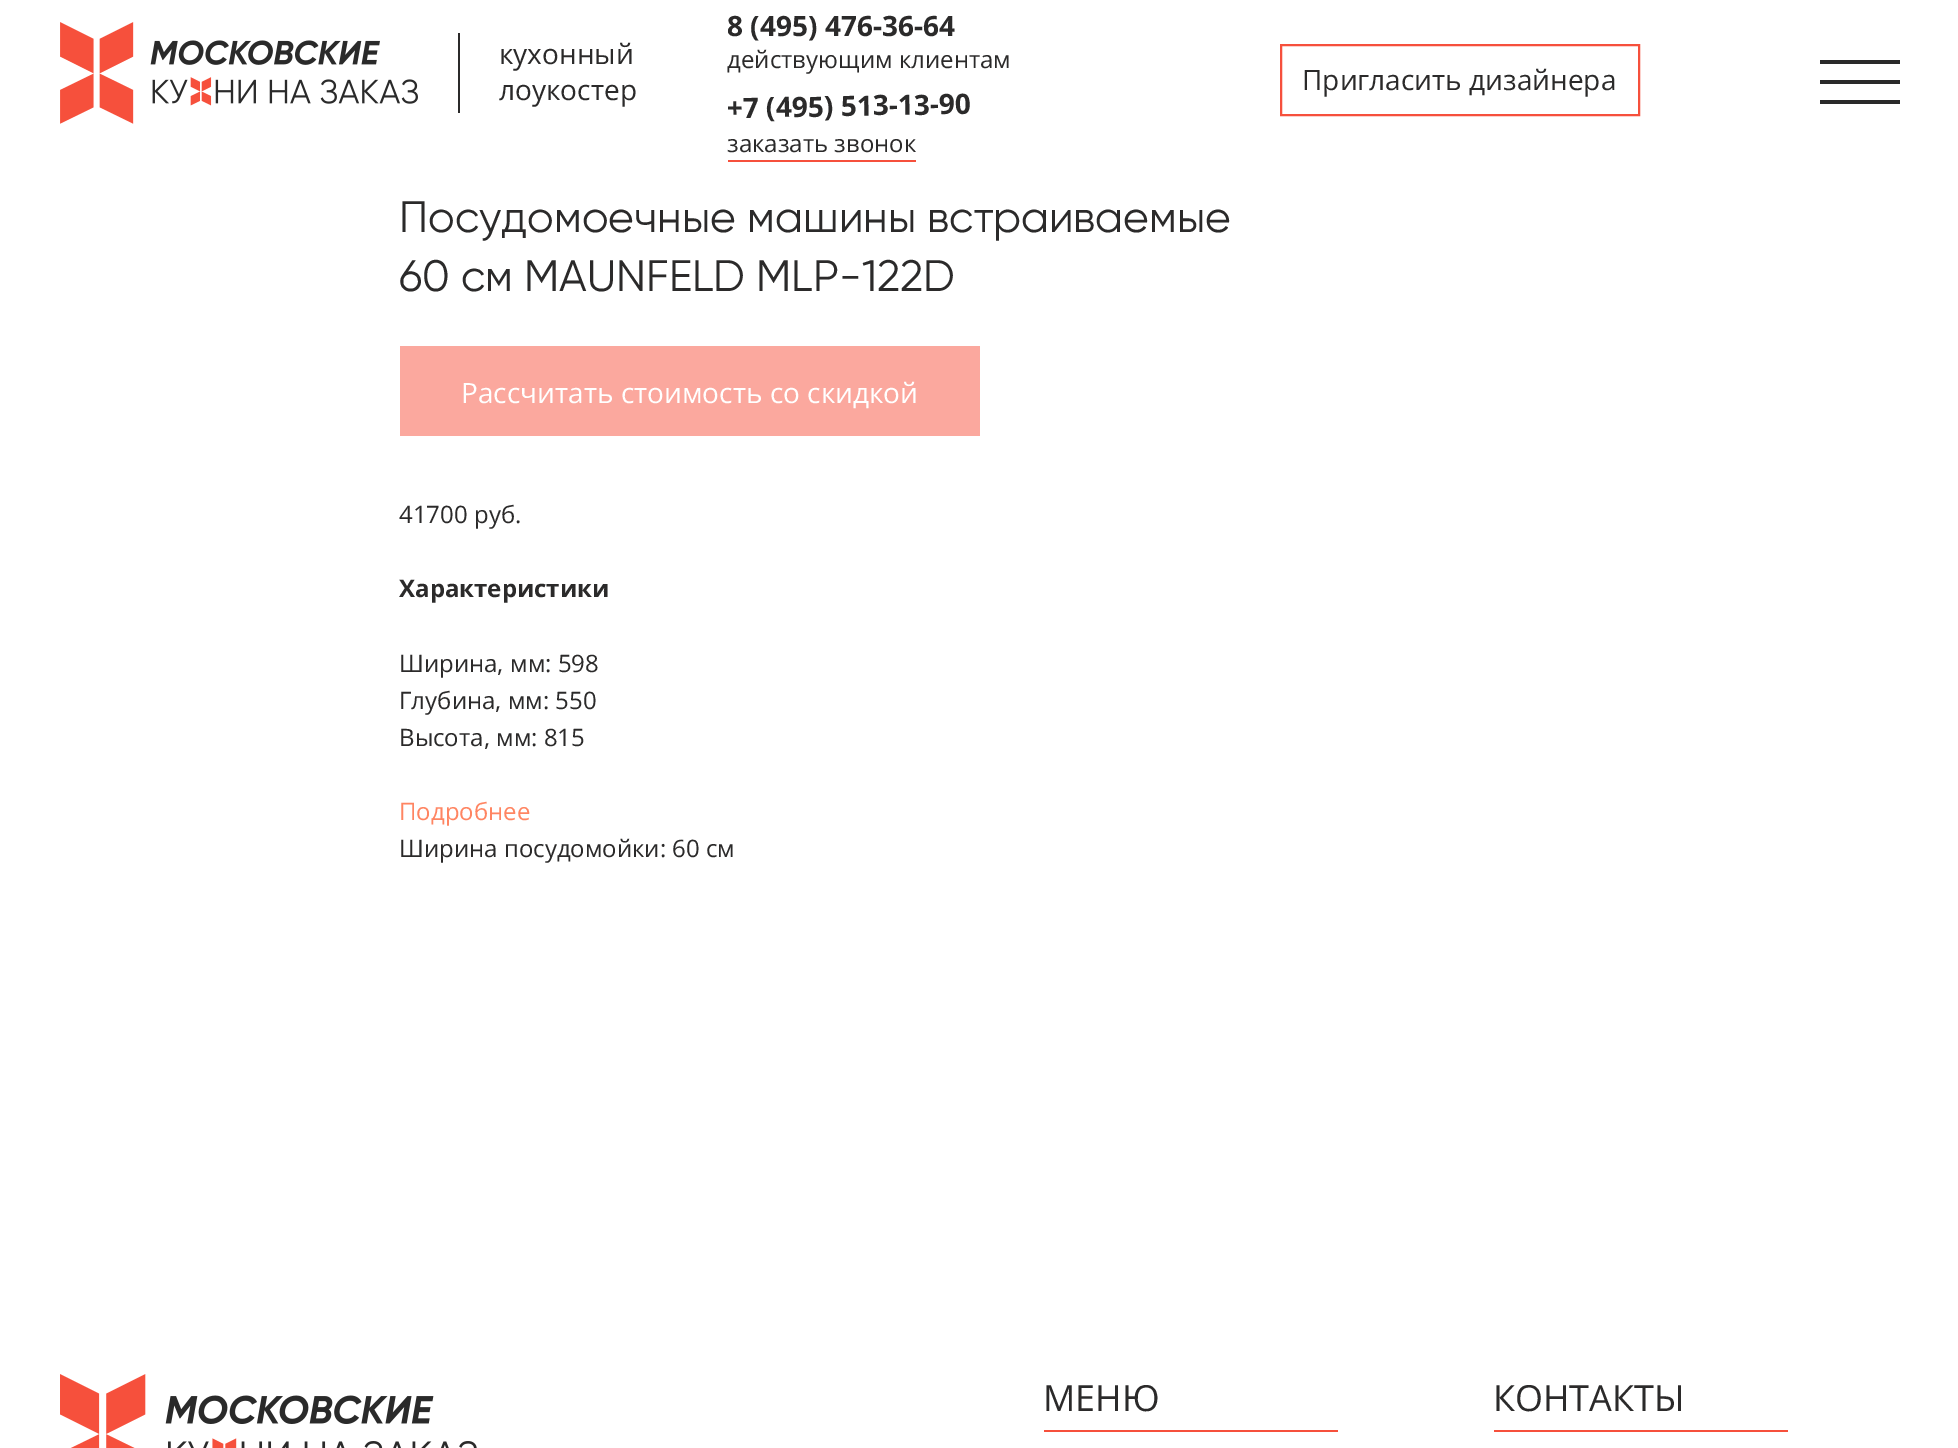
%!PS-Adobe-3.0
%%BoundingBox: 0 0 1958 1448
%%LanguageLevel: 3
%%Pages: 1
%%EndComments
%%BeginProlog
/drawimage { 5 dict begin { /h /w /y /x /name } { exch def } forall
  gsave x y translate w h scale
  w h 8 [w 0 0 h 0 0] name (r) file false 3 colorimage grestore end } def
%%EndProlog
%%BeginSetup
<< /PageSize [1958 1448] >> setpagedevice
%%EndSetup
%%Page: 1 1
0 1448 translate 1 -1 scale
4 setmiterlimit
1 setgray
0 0 1958 1448 rectfill
(images/1.raw) 60 22 358 102 drawimage
0.169 0.165 0.165 setrgbcolor
458 33 2 80 rectfill
0.965 0.314 0.235 setrgbcolor
2 setlinewidth
1281 45 358 70 rectstroke
0.165 setgray
1820 60 80 4 rectfill
1820 80 80 4 rectfill
1820 100 80 4 rectfill
0.965 0.314 0.235 setrgbcolor
728 160 188 2 rectfill
0.984 0.659 0.62 setrgbcolor
400 346 580 90 rectfill
(images/2.raw) 60 1374 417 74 drawimage
0.965 0.314 0.235 setrgbcolor
1044 1430 294 2 rectfill
1494 1430 294 2 rectfill
/OpenSans-Regular [28 0 0 -28 0 0] selectfont
0.169 0.165 0.165 setrgbcolor
499 64 moveto (кухонный) show
499 100 moveto (лоукостер) show
/OpenSans-Bold [28 0 0 -28 0 0] selectfont
727 36 moveto (8 \(495\) 476-36-64) show
/OpenSans-Regular [24 0 0 -24 0 0] selectfont
727 68 moveto (действующим клиентам) show
/OpenSans-Regular [28 0 0 -28 0 0] selectfont
1302 90 moveto (Пригласить дизайнера) show
/OpenSans-Bold [28 0 0 -28 0 0] selectfont
gsave 727 118 translate -1 rotate 0 0 moveto (+7 \(495\) 513-13-90) show grestore
/OpenSans-Regular [24 0 0 -24 0 0] selectfont
727 152 moveto (заказать звонок) show
/Gilroy-Regular [44 0 0 -44 0 0] selectfont
399 232 moveto (Посудомоечные машины встраиваемые) show
399 291 moveto (60 см MAUNFELD MLP-122D) show
/OpenSans-Regular [28 0 0 -28 0 0] selectfont
1 setgray
461 403 moveto (Рассчитать стоимость со скидкой) show
/OpenSans-Regular [24 0 0 -24 0 0] selectfont
0.169 0.165 0.165 setrgbcolor
399 523 moveto (41700 руб.) show
/OpenSans-Bold [24 0 0 -24 0 0] selectfont
399 597 moveto (Характеристики) show
/OpenSans-Regular [24 0 0 -24 0 0] selectfont
399 672 moveto (Ширина, мм: 598) show
399 709 moveto (Глубина, мм: 550) show
399 746 moveto (Высота, мм: 815) show
1 0.522 0.384 setrgbcolor
399 820 moveto (Подробнее) show
0.169 0.165 0.165 setrgbcolor
399 857 moveto (Ширина посудомойки: 60 см) show
/OpenSans-Regular [36 0 0 -36 0 0] selectfont
1043 1411 moveto (МЕНЮ) show
1493 1411 moveto (КОНТАКТЫ) show
showpage
%%EOF
